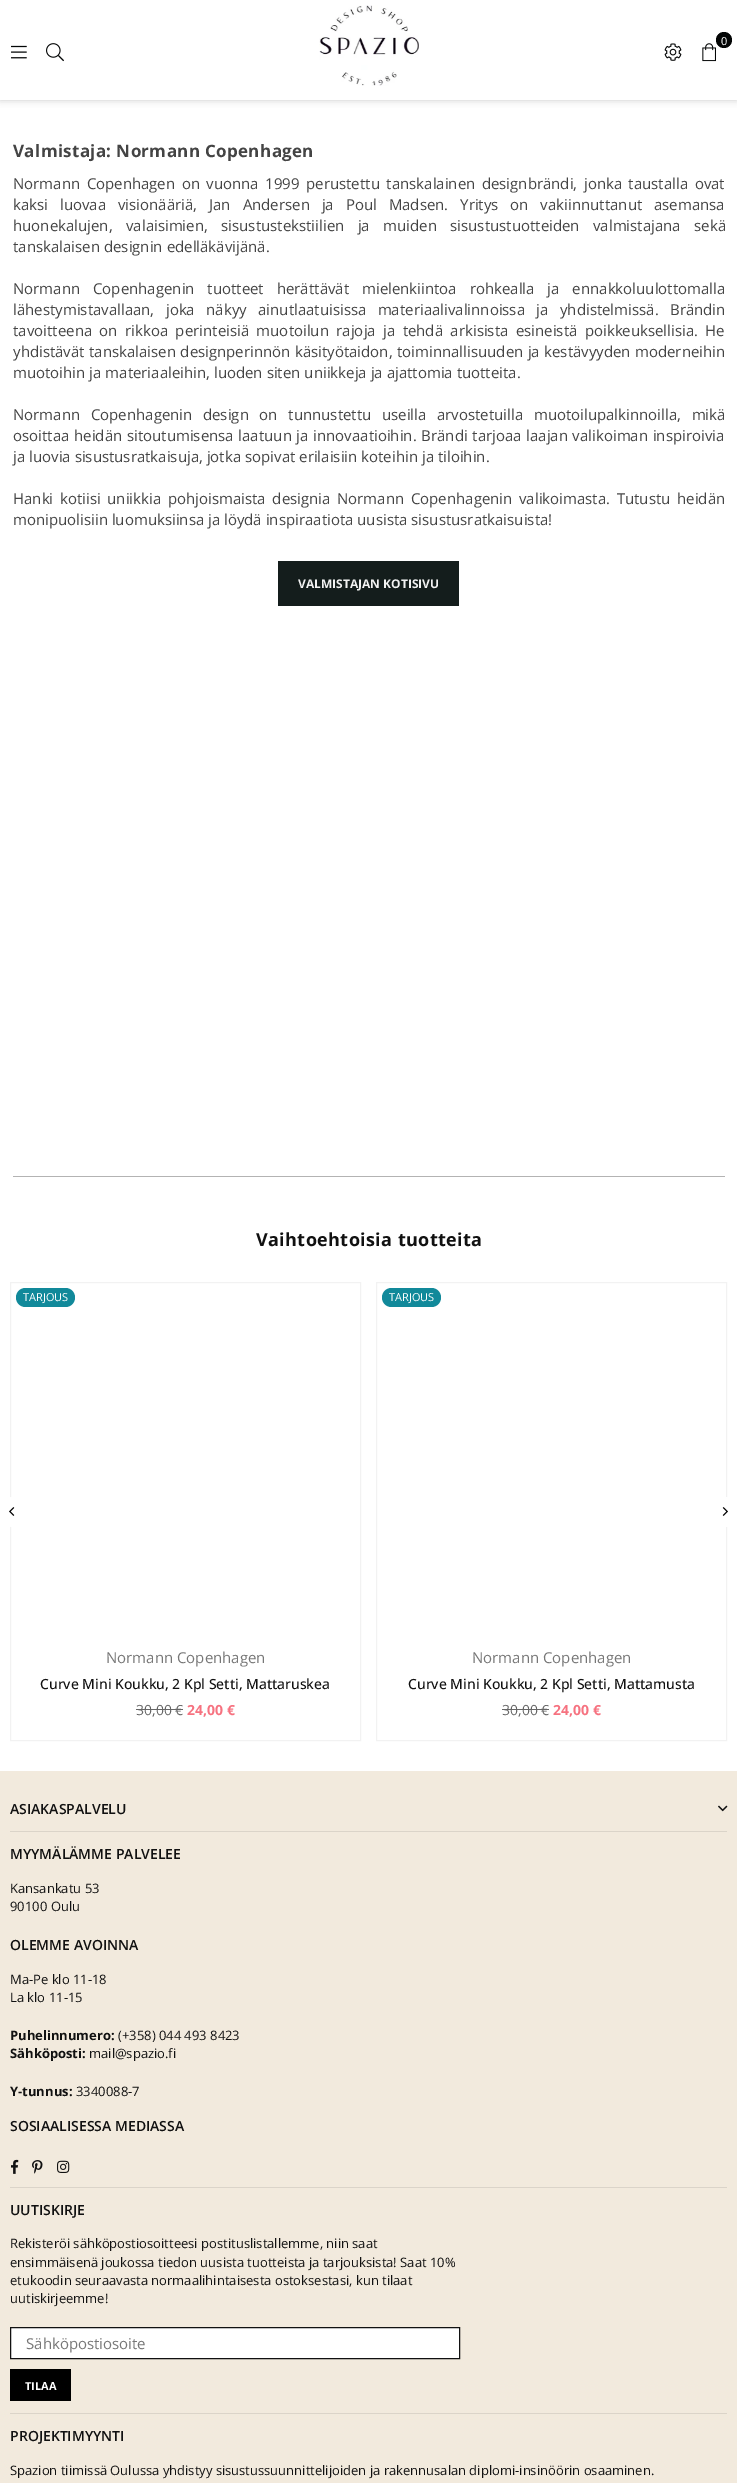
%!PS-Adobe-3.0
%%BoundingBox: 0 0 737 2483
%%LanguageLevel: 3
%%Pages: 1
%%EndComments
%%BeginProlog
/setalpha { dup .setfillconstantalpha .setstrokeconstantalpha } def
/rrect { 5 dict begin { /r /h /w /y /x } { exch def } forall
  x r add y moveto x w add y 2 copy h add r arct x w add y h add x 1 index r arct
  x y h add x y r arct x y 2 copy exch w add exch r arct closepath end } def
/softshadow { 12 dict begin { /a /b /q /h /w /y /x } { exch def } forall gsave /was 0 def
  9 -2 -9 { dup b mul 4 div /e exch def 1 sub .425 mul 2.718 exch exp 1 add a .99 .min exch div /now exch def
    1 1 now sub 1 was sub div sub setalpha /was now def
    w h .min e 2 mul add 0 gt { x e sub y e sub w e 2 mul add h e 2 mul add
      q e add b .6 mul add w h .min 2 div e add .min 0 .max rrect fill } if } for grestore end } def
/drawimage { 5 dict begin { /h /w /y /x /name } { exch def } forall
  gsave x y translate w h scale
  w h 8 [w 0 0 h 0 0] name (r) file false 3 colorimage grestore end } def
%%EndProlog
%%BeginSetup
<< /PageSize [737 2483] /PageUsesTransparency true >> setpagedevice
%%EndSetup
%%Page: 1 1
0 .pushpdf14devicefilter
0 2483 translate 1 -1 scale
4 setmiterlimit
1 setgray
0 0 737 2483 rectfill
0 setgray
0 0 737 100 0 3.5 0.2 softshadow
1 setgray
0 0 737 100 rectfill
(images/1.raw) 319 5 100 81 drawimage
0.012 0.02 0.02 setrgbcolor
newpath 724 40 8 0 360 arc closepath fill
(images/2.raw) 702 43 14 19 drawimage
(images/3.raw) 664 43 18 18 drawimage
(images/4.raw) 11 45 16 14 drawimage
(images/5.raw) 46 43 18 19 drawimage
0.078 0.114 0.11 setrgbcolor
278 561 181 45 rectfill
0.702 setgray
13 1176 712 1 rectfill
0.949 setgray
10.5 1282.5 350 458 rectstroke
1 setgray
newpath 13 1512 15 0 360 arc closepath fill
(images/6.raw) 9 1507 6 9 drawimage
0.067 0.537 0.604 setrgbcolor
16 1288 59 19 9.5 rrect fill
0.4 setgray
136 1709 47 1 rectfill
0.949 setgray
376.5 1282.5 350 458 rectstroke
0.067 0.537 0.604 setrgbcolor
382 1288 59 19 9.5 rrect fill
0.4 setgray
502 1709 47 1 rectfill
1 setgray
newpath 725 1512 15 0 360 arc closepath fill
(images/7.raw) 722 1507 6 9 drawimage
0.949 0.918 0.867 setrgbcolor
0 1771 737 712 rectfill
(images/8.raw) 718 1805 10 7 drawimage
0.859 0.831 0.788 setrgbcolor
10 1831 717 1 rectfill
(images/9.raw) 11 2159 8 15 drawimage
(images/10.raw) 32 2160 11 14 drawimage
(images/11.raw) 57 2160 13 13 drawimage
10 2187 717 1 rectfill
1 setgray
newpath 10.5 2327.5 moveto 459.5 2327.5 lineto 459.5 2358.5 lineto 10.5 2358.5 lineto closepath gsave fill grestore
0.067 setgray
stroke
0 setgray
10 2369 61 32 rectfill
0.859 0.831 0.788 setrgbcolor
10 2413 717 1 rectfill
/OpenSans-Regular [11 0 0 -11 0 0] selectfont
1 setgray
721 45 moveto (0) show
/OpenSans-Bold [17 0 0 -17 0 0] selectfont
0.267 setgray
13 157 moveto 0.35 0 (Valmistaja: Normann Copenhagen) ashow
/OpenSans-Regular [15 0 0 -15 0 0] selectfont
13 189 moveto 2.6 0 32 (Normann Copenhagen on vuonna 1999 perustettu tanskalainen designbrändi, jonka taustalla ovat) widthshow
13 210 moveto 8 0 32 (kaksi luovaa visionääriä, Jan Andersen ja Poul Madsen. Yritys on vakiinnuttanut asemansa) widthshow
13 231 moveto 9.5 0 32 (huonekalujen, valaisimien, sisustustekstiilien ja muiden sisustustuotteiden valmistajana sekä) widthshow
13 252 moveto (tanskalaisen designin edelläkävijänä.) show
13 294 moveto 9 0 32 (Normann Copenhagenin tuotteet herättävät mielenkiintoa rohkealla ja ennakkoluulottomalla) widthshow
13 315 moveto 7.5 0 32 (lähestymistavallaan, joka näkyy ainutlaatuisissa materiaalivalinnoissa ja yhdistelmissä. Brändin) widthshow
13 336 moveto 3.5 0 32 (tavoitteena on rikkoa perinteisiä muotoilun rajoja ja tehdä arkisista esineistä poikkeuksellisia. He) widthshow
13 357 moveto 0.5 0 32 (yhdistävät tanskalaisen designperinnön käsityötaidon, toiminnallisuuden ja kestävyyden moderneihin) widthshow
13 378 moveto (muotoihin ja materiaaleihin, luoden siten uniikkeja ja ajattomia tuotteita.) show
13 420 moveto 6.75 0 32 (Normann Copenhagenin design on tunnustettu useilla arvostetuilla muotoilupalkinnoilla, mikä) widthshow
13 441 moveto 0.75 0 32 (osoittaa heidän sitoutumisensa laatuun ja innovaatioihin. Brändi tarjoaa laajan valikoiman inspiroivia) widthshow
13 462 moveto (ja luovia sisustusratkaisuja, jotka sopivat erilaisiin koteihin ja tiloihin.) show
13 504 moveto 2.75 0 32 (Hanki kotiisi uniikkia pohjoismaista designia Normann Copenhagenin valikoimasta. Tutustu heidän) widthshow
13 525 moveto (monipuolisiin luomuksiinsa ja löydä inspiraatiota uusista sisustusratkaisuista!) show
/OpenSans-Bold [12 0 0 -12 0 0] selectfont
0.949 setgray
298 588 moveto (VALMISTAJAN KOTISIVU) show
/OpenSans-Bold [18 0 0 -18 0 0] selectfont
0.067 setgray
256 1246 moveto 0.4 0 (Vaihtoehtoisia tuotteita) ashow
/OpenSans-Regular [11 0 0 -11 0 0] selectfont
1 setgray
23 1301 moveto (TARJOUS) show
/OpenSans-Regular [15 0 0 -15 0 0] selectfont
0.467 setgray
106 1663 moveto (Normann Copenhagen) show
/OpenSans-Medium [14 0 0 -14 0 0] selectfont
0.067 setgray
40 1689 moveto (Curve Mini Koukku, 2 Kpl Setti, Mattaruskea) show
/OpenSans-Regular [14 0 0 -14 0 0] selectfont
0.4 setgray
136 1715 moveto (30,00 €) show
/OpenSans-Bold [14 0 0 -14 0 0] selectfont
0.965 0.447 0.502 setrgbcolor
187 1715 moveto (24,00 €) show
/OpenSans-Regular [11 0 0 -11 0 0] selectfont
1 setgray
389 1301 moveto (TARJOUS) show
/OpenSans-Regular [15 0 0 -15 0 0] selectfont
0.467 setgray
472 1663 moveto (Normann Copenhagen) show
/OpenSans-Medium [14 0 0 -14 0 0] selectfont
0.067 setgray
408 1689 moveto (Curve Mini Koukku, 2 Kpl Setti, Mattamusta) show
/OpenSans-Regular [14 0 0 -14 0 0] selectfont
0.4 setgray
502 1715 moveto (30,00 €) show
/OpenSans-Bold [14 0 0 -14 0 0] selectfont
0.965 0.447 0.502 setrgbcolor
553 1715 moveto (24,00 €) show
/OpenSans-SemiBold [14 0 0 -14 0 0] selectfont
0.067 setgray
10 1814 moveto (ASIAKASPALVELU) show
10 1859 moveto (MYYMÄLÄMME PALVELEE) show
/OpenSans-Regular [13 0 0 -13 0 0] selectfont
10 1893 moveto (Kansankatu 53) show
10 1911 moveto (90100 Oulu) show
/OpenSans-SemiBold [14 0 0 -14 0 0] selectfont
10 1950 moveto (OLEMME AVOINNA) show
/OpenSans-Regular [13 0 0 -13 0 0] selectfont
10 1984 moveto (Ma-Pe klo 11-18) show
10 2002 moveto (La klo 11-15) show
/OpenSans-Bold [13 0 0 -13 0 0] selectfont
10 2040 moveto (Puhelinnumero:) show
/OpenSans-Regular [13 0 0 -13 0 0] selectfont
118 2040 moveto (\(+358\) 044 493 8423) show
/OpenSans-Bold [13 0 0 -13 0 0] selectfont
10 2058 moveto (Sähköposti:) show
/OpenSans-Regular [13 0 0 -13 0 0] selectfont
89 2058 moveto (mail@spazio.fi) show
/OpenSans-Bold [13 0 0 -13 0 0] selectfont
10 2096 moveto (Y-tunnus:) show
/OpenSans-Regular [13 0 0 -13 0 0] selectfont
76 2096 moveto (3340088-7) show
/OpenSans-SemiBold [14 0 0 -14 0 0] selectfont
10 2131 moveto (SOSIAALISESSA MEDIASSA) show
10 2215 moveto (UUTISKIRJE) show
/OpenSans-Regular [13 0 0 -13 0 0] selectfont
10 2248 moveto (Rekisteröi sähköpostiosoitteesi postituslistallemme, niin saat) show
10 2267 moveto (ensimmäisenä joukossa tiedon uusista tuotteista ja tarjouksista! Saat 10%) show
10 2285 moveto (etukoodin seuraavasta normaalihintaisesta ostoksestasi, kun tilaat) show
10 2303 moveto (uutiskirjeemme!) show
/OpenSans-Regular [15 0 0 -15 0 0] selectfont
0.467 setgray
26 2349 moveto (Sähköpostiosoite) show
/OpenSans-Bold [11 0 0 -11 0 0] selectfont
1 setgray
25 2390 moveto (TILAA) show
/OpenSans-SemiBold [14 0 0 -14 0 0] selectfont
0.067 setgray
10 2441 moveto (PROJEKTIMYYNTI) show
/OpenSans-Regular [13 0 0 -13 0 0] selectfont
10 2475 moveto (Spazion tiimissä Oulussa yhdistyy sisustussuunnittelijoiden ja rakennusalan diplomi-insinöörin osaaminen.) show
.poppdf14devicefilter showpage
%%EOF
